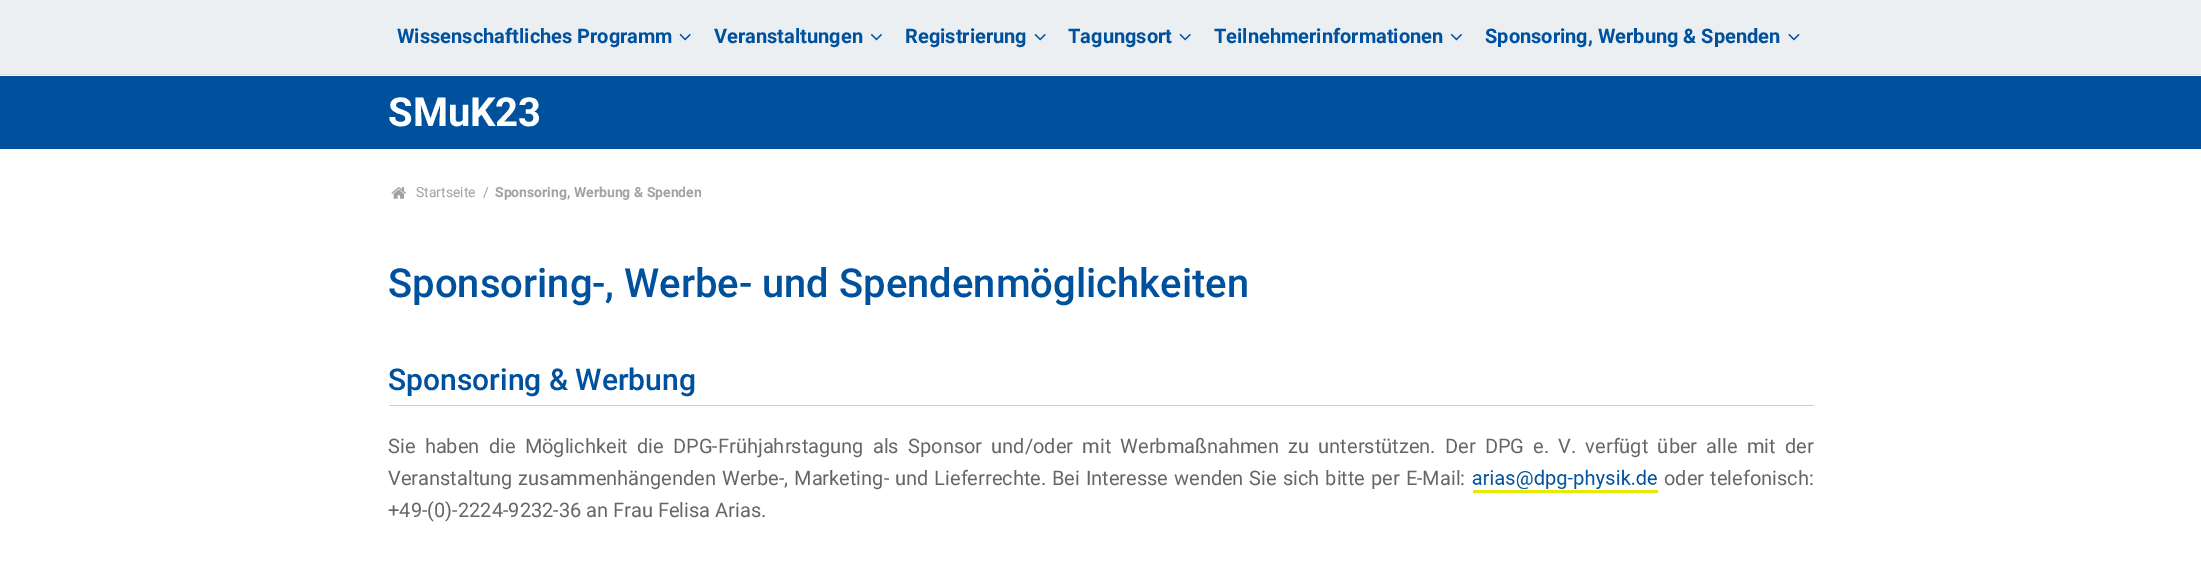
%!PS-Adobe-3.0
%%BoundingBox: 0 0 2201 576
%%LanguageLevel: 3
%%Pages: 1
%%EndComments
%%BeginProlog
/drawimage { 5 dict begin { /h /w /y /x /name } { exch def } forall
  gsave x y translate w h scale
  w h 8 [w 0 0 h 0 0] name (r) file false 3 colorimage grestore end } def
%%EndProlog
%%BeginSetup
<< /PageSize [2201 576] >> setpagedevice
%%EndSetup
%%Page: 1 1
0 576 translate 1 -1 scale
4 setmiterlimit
1 setgray
0 0 2201 576 rectfill
0.925 0.937 0.949 setrgbcolor
0 0 2201 74 rectfill
0.875 setgray
0 74 2201 1 rectfill
(images/1.raw) 679 34 12 7 drawimage
(images/2.raw) 870 34 12 7 drawimage
(images/1.raw) 1034 34 12 7 drawimage
(images/1.raw) 1179 34 12 7 drawimage
(images/2.raw) 1450 34 12 7 drawimage
(images/3.raw) 1788 34 12 7 drawimage
0 0.318 0.616 setrgbcolor
0 76 2201 73 rectfill
(images/4.raw) 391 187 15 12 drawimage
0.91 0.914 0 setrgbcolor
389 405 1425 1 rectfill
(images/5.raw) 1472 469 185 20 drawimage
1473 490 185 3 rectfill
/Roboto-Bold [20 0 0 -20 0 0] selectfont
0 0.318 0.616 setrgbcolor
397 43 moveto (Wissenschaftliches Programm) show
714 43 moveto (Veranstaltungen) show
905 43 moveto (Registrierung) show
1068 43 moveto (Tagungsort) show
1214 43 moveto (Teilnehmerinformationen) show
1485 43 moveto (Sponsoring, Werbung & Spenden) show
/Roboto-Bold [40 0 0 -40 0 0] selectfont
1 setgray
388 126 moveto (SMuK23) show
/Roboto-Regular [14 0 0 -14 0 0] selectfont
0.635 setgray
416 197 moveto (Startseite) show
483 197 moveto (/) show
/Roboto-Bold [14 0 0 -14 0 0] selectfont
495 197 moveto (Sponsoring, Werbung & Spenden) show
/Roboto-Medium [40 0 0 -40 0 0] selectfont
0 0.318 0.616 setrgbcolor
388 297 moveto (Sponsoring-, Werbe- und Spendenmöglichkeiten) show
/Roboto-Medium [30 0 0 -30 0 0] selectfont
388 390 moveto (Sponsoring & Werbung) show
/Roboto-Regular [20 0 0 -20 0 0] selectfont
0.4 setgray
388 453 moveto 4.3 0 32 (Sie haben die Möglichkeit die DPG-Frühjahrstagung als Sponsor und/oder mit Werbmaßnahmen zu unterstützen. Der DPG e. V. verfügt über alle mit der) widthshow
388 485 moveto 1 0 32 (Veranstaltung zusammenhängenden Werbe-, Marketing- und Lieferrechte. Bei Interesse wenden Sie sich bitte per E-Mail:) widthshow
1664 485 moveto 1 0 32 (oder telefonisch:) widthshow
388 517 moveto (+49-\(0\)-2224-9232-36 an Frau Felisa Arias.) show
showpage
%%EOF
